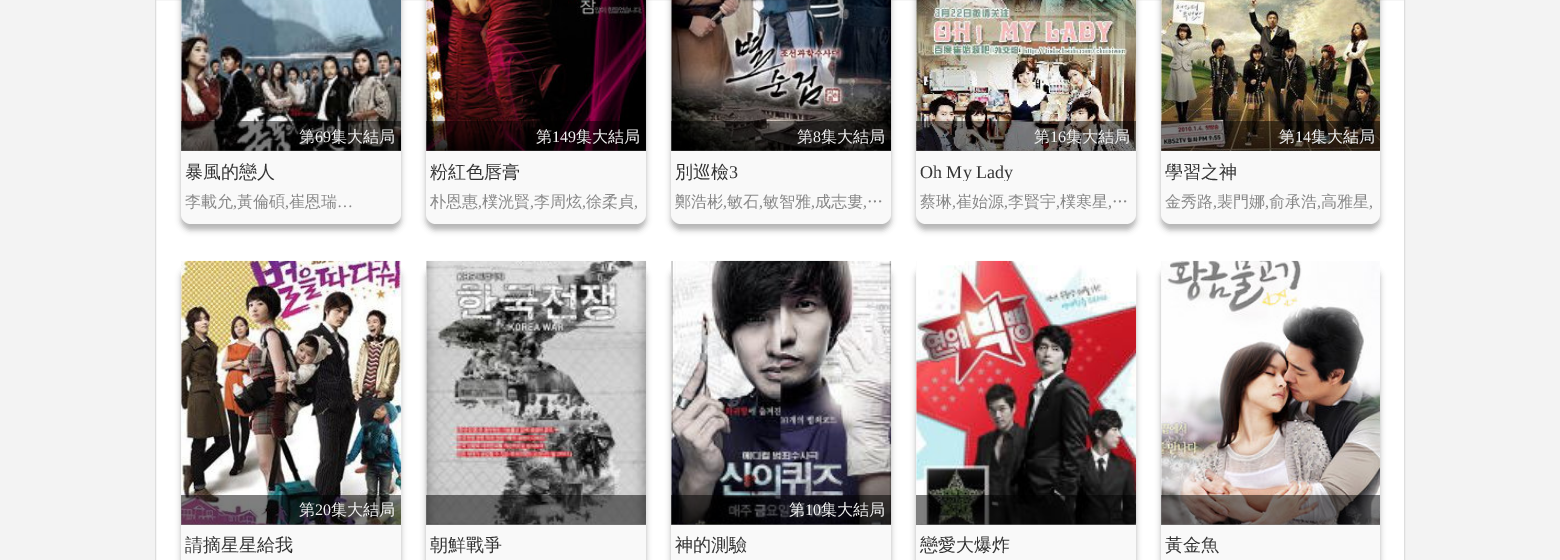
%!PS-Adobe-3.0
%%BoundingBox: 0 0 1560 560
%%LanguageLevel: 3
%%Pages: 1
%%EndComments
%%BeginProlog
/setalpha { dup .setfillconstantalpha .setstrokeconstantalpha } def
/rrect { 5 dict begin { /r /h /w /y /x } { exch def } forall
  x r add y moveto x w add y 2 copy h add r arct x w add y h add x 1 index r arct
  x y h add x y r arct x y 2 copy exch w add exch r arct closepath end } def
/softshadow { 12 dict begin { /a /b /q /h /w /y /x } { exch def } forall gsave /was 0 def
  9 -2 -9 { dup b mul 4 div /e exch def 1 sub .425 mul 2.718 exch exp 1 add a .99 .min exch div /now exch def
    1 1 now sub 1 was sub div sub setalpha /was now def
    w h .min e 2 mul add 0 gt { x e sub y e sub w e 2 mul add h e 2 mul add
      q e add b .6 mul add w h .min 2 div e add .min 0 .max rrect fill } if } for grestore end } def
/drawimage { 5 dict begin { /h /w /y /x /name } { exch def } forall
  gsave x y translate w h scale
  w h 8 [w 0 0 h 0 0] name (r) file false 3 colorimage grestore end } def
%%EndProlog
%%BeginSetup
<< /PageSize [1560 560] /PageUsesTransparency true >> setpagedevice
%%EndSetup
%%Page: 1 1
0 .pushpdf14devicefilter
0 560 translate 1 -1 scale
4 setmiterlimit
0.953 setgray
0 0 1560 560 rectfill
1 setgray
newpath 155.5 -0.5 moveto 1404.5 -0.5 lineto 1404.5 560.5 lineto 155.5 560.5 lineto closepath gsave fill grestore
0.867 setgray
stroke
0 setgray
181 -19 220 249 10 3 0.3 softshadow
0.976 setgray
newpath 181 -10 moveto 401 -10 lineto 401 214 lineto 401 219.5 396.5 224 391 224 curveto 191 224 lineto 185.5 224 181 219.5 181 214 curveto closepath fill
(images/1.raw) 181 0 221 151 drawimage
0.5 setalpha
0 setgray
181 121 220 30 rectfill
1 setalpha
426 -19 220 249 10 3 0.3 softshadow
0.976 setgray
newpath 426 -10 moveto 646 -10 lineto 646 214 lineto 646 219.5 641.5 224 636 224 curveto 436 224 lineto 430.5 224 426 219.5 426 214 curveto closepath fill
(images/2.raw) 426 0 221 151 drawimage
0.5 setalpha
0 setgray
426 121 220 30 rectfill
1 setalpha
671 -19 220 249 10 3 0.3 softshadow
0.976 setgray
newpath 671 -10 moveto 891 -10 lineto 891 214 lineto 891 219.5 886.5 224 881 224 curveto 681 224 lineto 675.5 224 671 219.5 671 214 curveto closepath fill
(images/3.raw) 671 0 221 151 drawimage
0.5 setalpha
0 setgray
671 121 220 30 rectfill
1 setalpha
916 -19 220 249 10 3 0.3 softshadow
0.976 setgray
newpath 916 -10 moveto 1136 -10 lineto 1136 214 lineto 1136 219.5 1131.5 224 1126 224 curveto 926 224 lineto 920.5 224 916 219.5 916 214 curveto closepath fill
(images/4.raw) 916 0 221 151 drawimage
0.5 setalpha
0 setgray
916 121 220 30 rectfill
1 setalpha
1161 -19 219 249 10 3 0.3 softshadow
0.976 setgray
newpath 1161 -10 moveto 1380 -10 lineto 1380 214 lineto 1380 219.5 1375.5 224 1370 224 curveto 1171 224 lineto 1165.5 224 1161 219.5 1161 214 curveto closepath fill
(images/5.raw) 1161 0 219 151 drawimage
0.5 setalpha
0 setgray
1161 121 219 30 rectfill
1 setalpha
181 268 220 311 10 3 0.3 softshadow
0.976 setgray
181 261 220 299 rectfill
(images/6.raw) 181 260 221 265 drawimage
0.5 setalpha
0 setgray
181 495 220 30 rectfill
1 setalpha
426 268 220 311 10 3 0.3 softshadow
0.976 setgray
426 261 220 299 rectfill
(images/7.raw) 426 260 221 265 drawimage
0.5 setalpha
0 setgray
426 495 220 30 rectfill
1 setalpha
671 268 220 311 10 3 0.3 softshadow
0.976 setgray
671 261 220 299 rectfill
(images/8.raw) 671 260 221 265 drawimage
0.5 setalpha
0 setgray
671 495 220 30 rectfill
1 setalpha
916 268 220 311 10 3 0.3 softshadow
0.976 setgray
916 261 220 299 rectfill
(images/9.raw) 916 260 221 265 drawimage
0.5 setalpha
0 setgray
916 495 220 30 rectfill
1 setalpha
1161 268 219 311 10 3 0.3 softshadow
0.976 setgray
1161 261 219 299 rectfill
(images/10.raw) 1161 260 219 265 drawimage
0.5 setalpha
0 setgray
1161 495 219 30 rectfill
/WenQuanYiZenHei-Medium [16 0 0 -16 0 0] selectfont
1 setalpha
0.953 setgray
299 142 moveto (第) show
/LiberationSerif-Regular [16 0 0 -16 0 0] selectfont
315 142 moveto (69) show
/WenQuanYiZenHei-Medium [16 0 0 -16 0 0] selectfont
331 142 moveto (集大結局) show
/WenQuanYiZenHei-Medium [18 0 0 -18 0 0] selectfont
0.2 setgray
185 178 moveto (暴風的戀人) show
/WenQuanYiZenHei-Medium [16 0 0 -16 0 0] selectfont
0.533 setgray
185 207 moveto (李載允) show
/LiberationSerif-Regular [16 0 0 -16 0 0] selectfont
233 207 moveto (,) show
/WenQuanYiZenHei-Medium [16 0 0 -16 0 0] selectfont
237 207 moveto (黃倫碩) show
/LiberationSerif-Regular [16 0 0 -16 0 0] selectfont
285 207 moveto (,) show
/WenQuanYiZenHei-Medium [16 0 0 -16 0 0] selectfont
289 207 moveto (崔恩瑞) show
/LiberationSerif-Regular [16 0 0 -16 0 0] selectfont
337 207 moveto (…) show
/WenQuanYiZenHei-Medium [16 0 0 -16 0 0] selectfont
0.953 setgray
536 142 moveto (第) show
/LiberationSerif-Regular [16 0 0 -16 0 0] selectfont
552 142 moveto (149) show
/WenQuanYiZenHei-Medium [16 0 0 -16 0 0] selectfont
576 142 moveto (集大結局) show
/WenQuanYiZenHei-Medium [18 0 0 -18 0 0] selectfont
0.2 setgray
430 178 moveto (粉紅色唇膏) show
/WenQuanYiZenHei-Medium [16 0 0 -16 0 0] selectfont
0.533 setgray
430 207 moveto (朴恩惠) show
/LiberationSerif-Regular [16 0 0 -16 0 0] selectfont
478 207 moveto (,) show
/WenQuanYiZenHei-Medium [16 0 0 -16 0 0] selectfont
482 207 moveto (樸洸賢) show
/LiberationSerif-Regular [16 0 0 -16 0 0] selectfont
530 207 moveto (,) show
/WenQuanYiZenHei-Medium [16 0 0 -16 0 0] selectfont
534 207 moveto (李周炫) show
/LiberationSerif-Regular [16 0 0 -16 0 0] selectfont
582 207 moveto (,) show
/WenQuanYiZenHei-Medium [16 0 0 -16 0 0] selectfont
586 207 moveto (徐柔貞) show
/LiberationSerif-Regular [16 0 0 -16 0 0] selectfont
634 207 moveto (,) show
/WenQuanYiZenHei-Medium [16 0 0 -16 0 0] selectfont
0.953 setgray
797 142 moveto (第) show
/LiberationSerif-Regular [16 0 0 -16 0 0] selectfont
813 142 moveto (8) show
/WenQuanYiZenHei-Medium [16 0 0 -16 0 0] selectfont
821 142 moveto (集大結局) show
/WenQuanYiZenHei-Medium [18 0 0 -18 0 0] selectfont
0.2 setgray
675 178 moveto (別巡檢) show
/LiberationSerif-Regular [18 0 0 -18 0 0] selectfont
729 178 moveto (3) show
/WenQuanYiZenHei-Medium [16 0 0 -16 0 0] selectfont
0.533 setgray
675 207 moveto (鄭浩彬) show
727 207 moveto (敏石) show
763 207 moveto (敏智雅) show
815 207 moveto (成志婁) show
867 207 moveto (…) show
/LiberationSerif-Regular [16 0 0 -16 0 0] selectfont
723 207 moveto (,) show
759 207 moveto (,) show
811 207 moveto (,) show
863 207 moveto (,) show
/WenQuanYiZenHei-Medium [16 0 0 -16 0 0] selectfont
0.953 setgray
1034 142 moveto (第) show
/LiberationSerif-Regular [16 0 0 -16 0 0] selectfont
1050 142 moveto (16) show
/WenQuanYiZenHei-Medium [16 0 0 -16 0 0] selectfont
1066 142 moveto (集大結局) show
gsave
916 151 220 30 rectclip
/LiberationSerif-Regular [18 0 0 -18 0 0] selectfont
0.2 setgray
920 178 moveto (Oh My Lady) show
grestore
0.533 setgray
920 207 moveto (蔡琳) show
956 207 moveto (崔始源) show
1008 207 moveto (李賢宇) show
1060 207 moveto (樸寒星) show
1112 207 moveto (…) show
/LiberationSerif-Regular [16 0 0 -16 0 0] selectfont
952 207 moveto (,) show
1004 207 moveto (,) show
1056 207 moveto (,) show
1108 207 moveto (,) show
/WenQuanYiZenHei-Medium [16 0 0 -16 0 0] selectfont
0.953 setgray
1279 142 moveto (第) show
/LiberationSerif-Regular [16 0 0 -16 0 0] selectfont
1295 142 moveto (14) show
/WenQuanYiZenHei-Medium [16 0 0 -16 0 0] selectfont
1311 142 moveto (集大結局) show
/WenQuanYiZenHei-Medium [18 0 0 -18 0 0] selectfont
0.2 setgray
1165 178 moveto (學習之神) show
/WenQuanYiZenHei-Medium [16 0 0 -16 0 0] selectfont
0.533 setgray
1165 207 moveto (金秀路) show
/LiberationSerif-Regular [16 0 0 -16 0 0] selectfont
1213 207 moveto (,) show
/WenQuanYiZenHei-Medium [16 0 0 -16 0 0] selectfont
1217 207 moveto (裴門娜) show
/LiberationSerif-Regular [16 0 0 -16 0 0] selectfont
1265 207 moveto (,) show
/WenQuanYiZenHei-Medium [16 0 0 -16 0 0] selectfont
1269 207 moveto (俞承浩) show
/LiberationSerif-Regular [16 0 0 -16 0 0] selectfont
1317 207 moveto (,) show
/WenQuanYiZenHei-Medium [16 0 0 -16 0 0] selectfont
1321 207 moveto (高雅星) show
/LiberationSerif-Regular [16 0 0 -16 0 0] selectfont
1369 207 moveto (,) show
/WenQuanYiZenHei-Medium [16 0 0 -16 0 0] selectfont
0.953 setgray
299 515 moveto (第) show
/LiberationSerif-Regular [16 0 0 -16 0 0] selectfont
315 515 moveto (20) show
/WenQuanYiZenHei-Medium [16 0 0 -16 0 0] selectfont
331 515 moveto (集大結局) show
/WenQuanYiZenHei-Medium [18 0 0 -18 0 0] selectfont
0.2 setgray
185 551 moveto (請摘星星給我) show
430 551 moveto (朝鮮戰爭) show
/WenQuanYiZenHei-Medium [16 0 0 -16 0 0] selectfont
0.953 setgray
789 515 moveto (第) show
/LiberationSerif-Regular [16 0 0 -16 0 0] selectfont
805 515 moveto (10) show
/WenQuanYiZenHei-Medium [16 0 0 -16 0 0] selectfont
821 515 moveto (集大結局) show
/WenQuanYiZenHei-Medium [18 0 0 -18 0 0] selectfont
0.2 setgray
675 551 moveto (神的測驗) show
920 551 moveto (戀愛大爆炸) show
1165 551 moveto (黃金魚) show
.poppdf14devicefilter showpage
%%EOF
